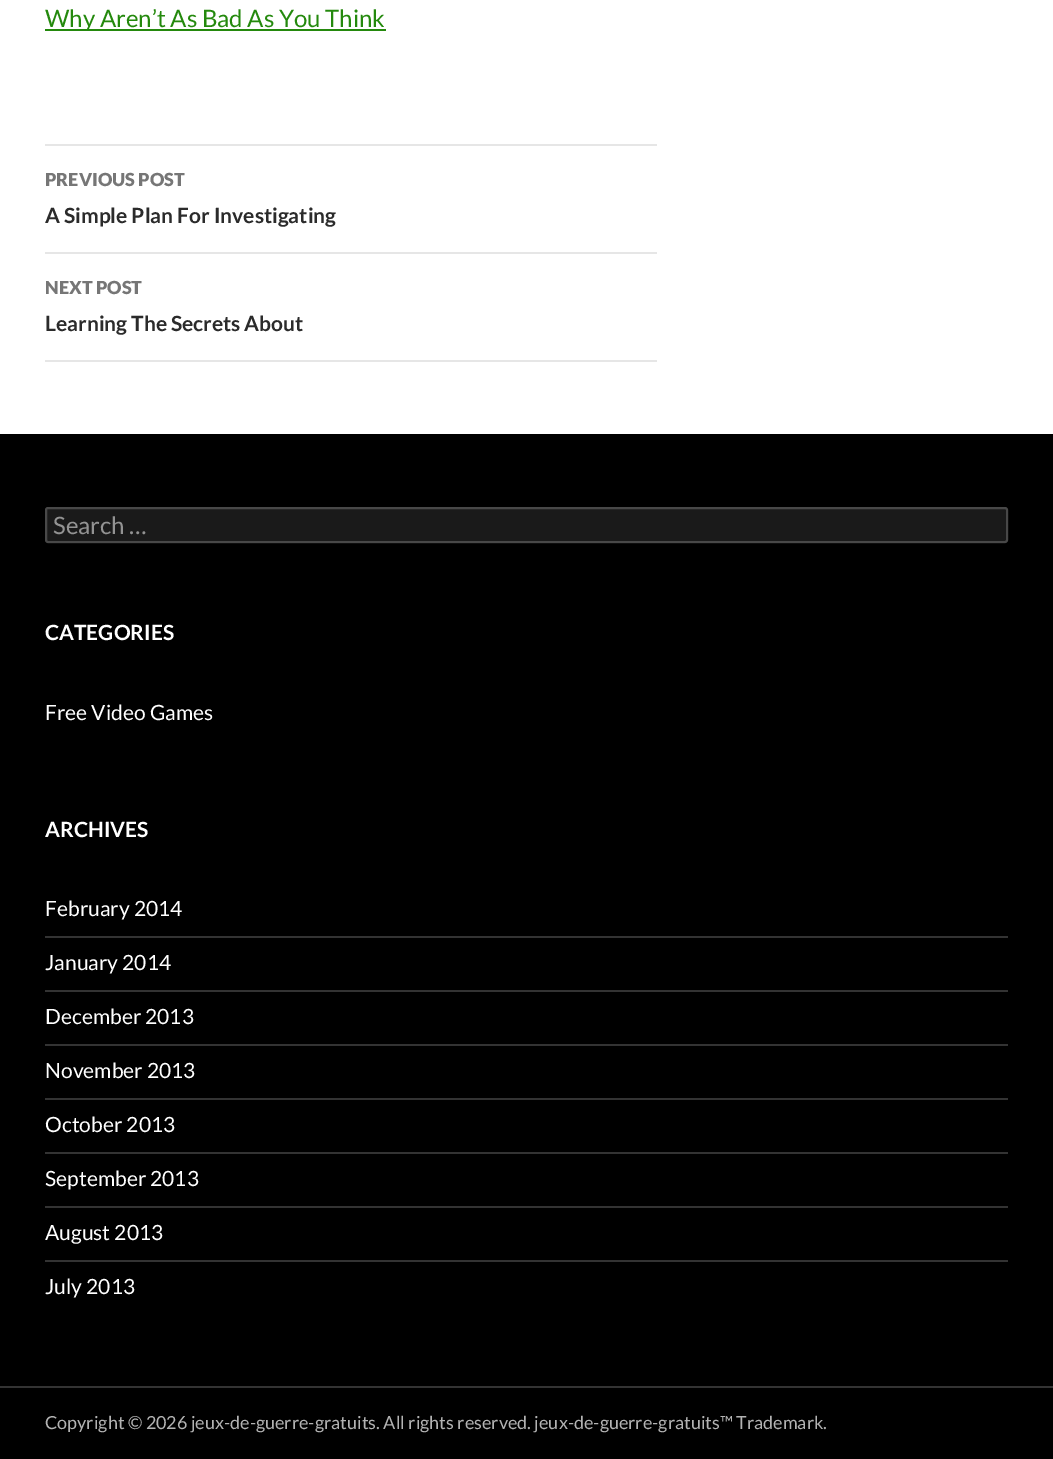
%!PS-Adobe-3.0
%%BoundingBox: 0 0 1053 1459
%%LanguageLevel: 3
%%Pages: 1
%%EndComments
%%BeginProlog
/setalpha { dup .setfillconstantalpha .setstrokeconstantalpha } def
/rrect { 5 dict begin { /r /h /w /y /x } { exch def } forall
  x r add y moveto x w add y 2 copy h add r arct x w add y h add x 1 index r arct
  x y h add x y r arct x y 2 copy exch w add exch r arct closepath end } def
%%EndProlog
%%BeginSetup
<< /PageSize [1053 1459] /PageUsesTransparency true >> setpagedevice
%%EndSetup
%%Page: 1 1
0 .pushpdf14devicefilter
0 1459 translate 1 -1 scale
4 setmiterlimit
1 setgray
0 0 1053 1459 rectfill
0.141 0.537 0.051 setrgbcolor
45 29 341 2 rectfill
0.902 setgray
45 144 612 2 rectfill
45 252 612 2 rectfill
45 360 612 2 rectfill
0 setgray
0 434 1053 952 rectfill
0.2 setgray
0 1386 1053 2 rectfill
0.102 setgray
45 507 963 36 3 rrect fill
0.2 setalpha
1 setgray
2 setlinewidth
46 508 961 34 2 rrect stroke
1 setalpha
0.2 setgray
45 936 963 2 rectfill
45 990 963 2 rectfill
45 1044 963 2 rectfill
45 1098 963 2 rectfill
45 1152 963 2 rectfill
45 1206 963 2 rectfill
45 1260 963 2 rectfill
0 setgray
0 1388 1053 71 rectfill
/Lato-Regular [24 0 0 -24 0 0] selectfont
0.141 0.537 0.051 setrgbcolor
45 27 moveto (Why Aren’t As Bad As You Think) show
/Lato-Black [18 0 0 -18 0 0] selectfont
0.463 setgray
45 186 moveto (PREVIOUS POST) show
/Lato-Bold [21 0 0 -21 0 0] selectfont
0.169 setgray
45 223 moveto (A Simple Plan For Investigating) show
/Lato-Black [18 0 0 -18 0 0] selectfont
0.463 setgray
45 294 moveto (NEXT POST) show
/Lato-Bold [21 0 0 -21 0 0] selectfont
0.169 setgray
45 331 moveto (Learning The Secrets About) show
/Lato-Regular [24 0 0 -24 0 0] selectfont
0.576 setgray
53 534 moveto (Search …) show
/Lato-Bold [21 0 0 -21 0 0] selectfont
1 setgray
45 640 moveto (CATEGORIES) show
/Lato-Regular [21 0 0 -21 0 0] selectfont
45 720 moveto (Free Video Games) show
/Lato-Bold [21 0 0 -21 0 0] selectfont
45 837 moveto (ARCHIVES) show
/Lato-Regular [21 0 0 -21 0 0] selectfont
45 916 moveto (February 2014) show
45 970 moveto (January 2014) show
45 1024 moveto (December 2013) show
45 1078 moveto (November 2013) show
45 1132 moveto (October 2013) show
45 1186 moveto (September 2013) show
45 1240 moveto (August 2013) show
45 1294 moveto (July 2013) show
/Lato-Regular [18 0 0 -18 0 0] selectfont
0.702 setgray
45 1429 moveto (Copyright © 2026 jeux-de-guerre-gratuits. All rights reserved. jeux-de-guerre-gratuits™ Trademark.) show
.poppdf14devicefilter showpage
%%EOF
